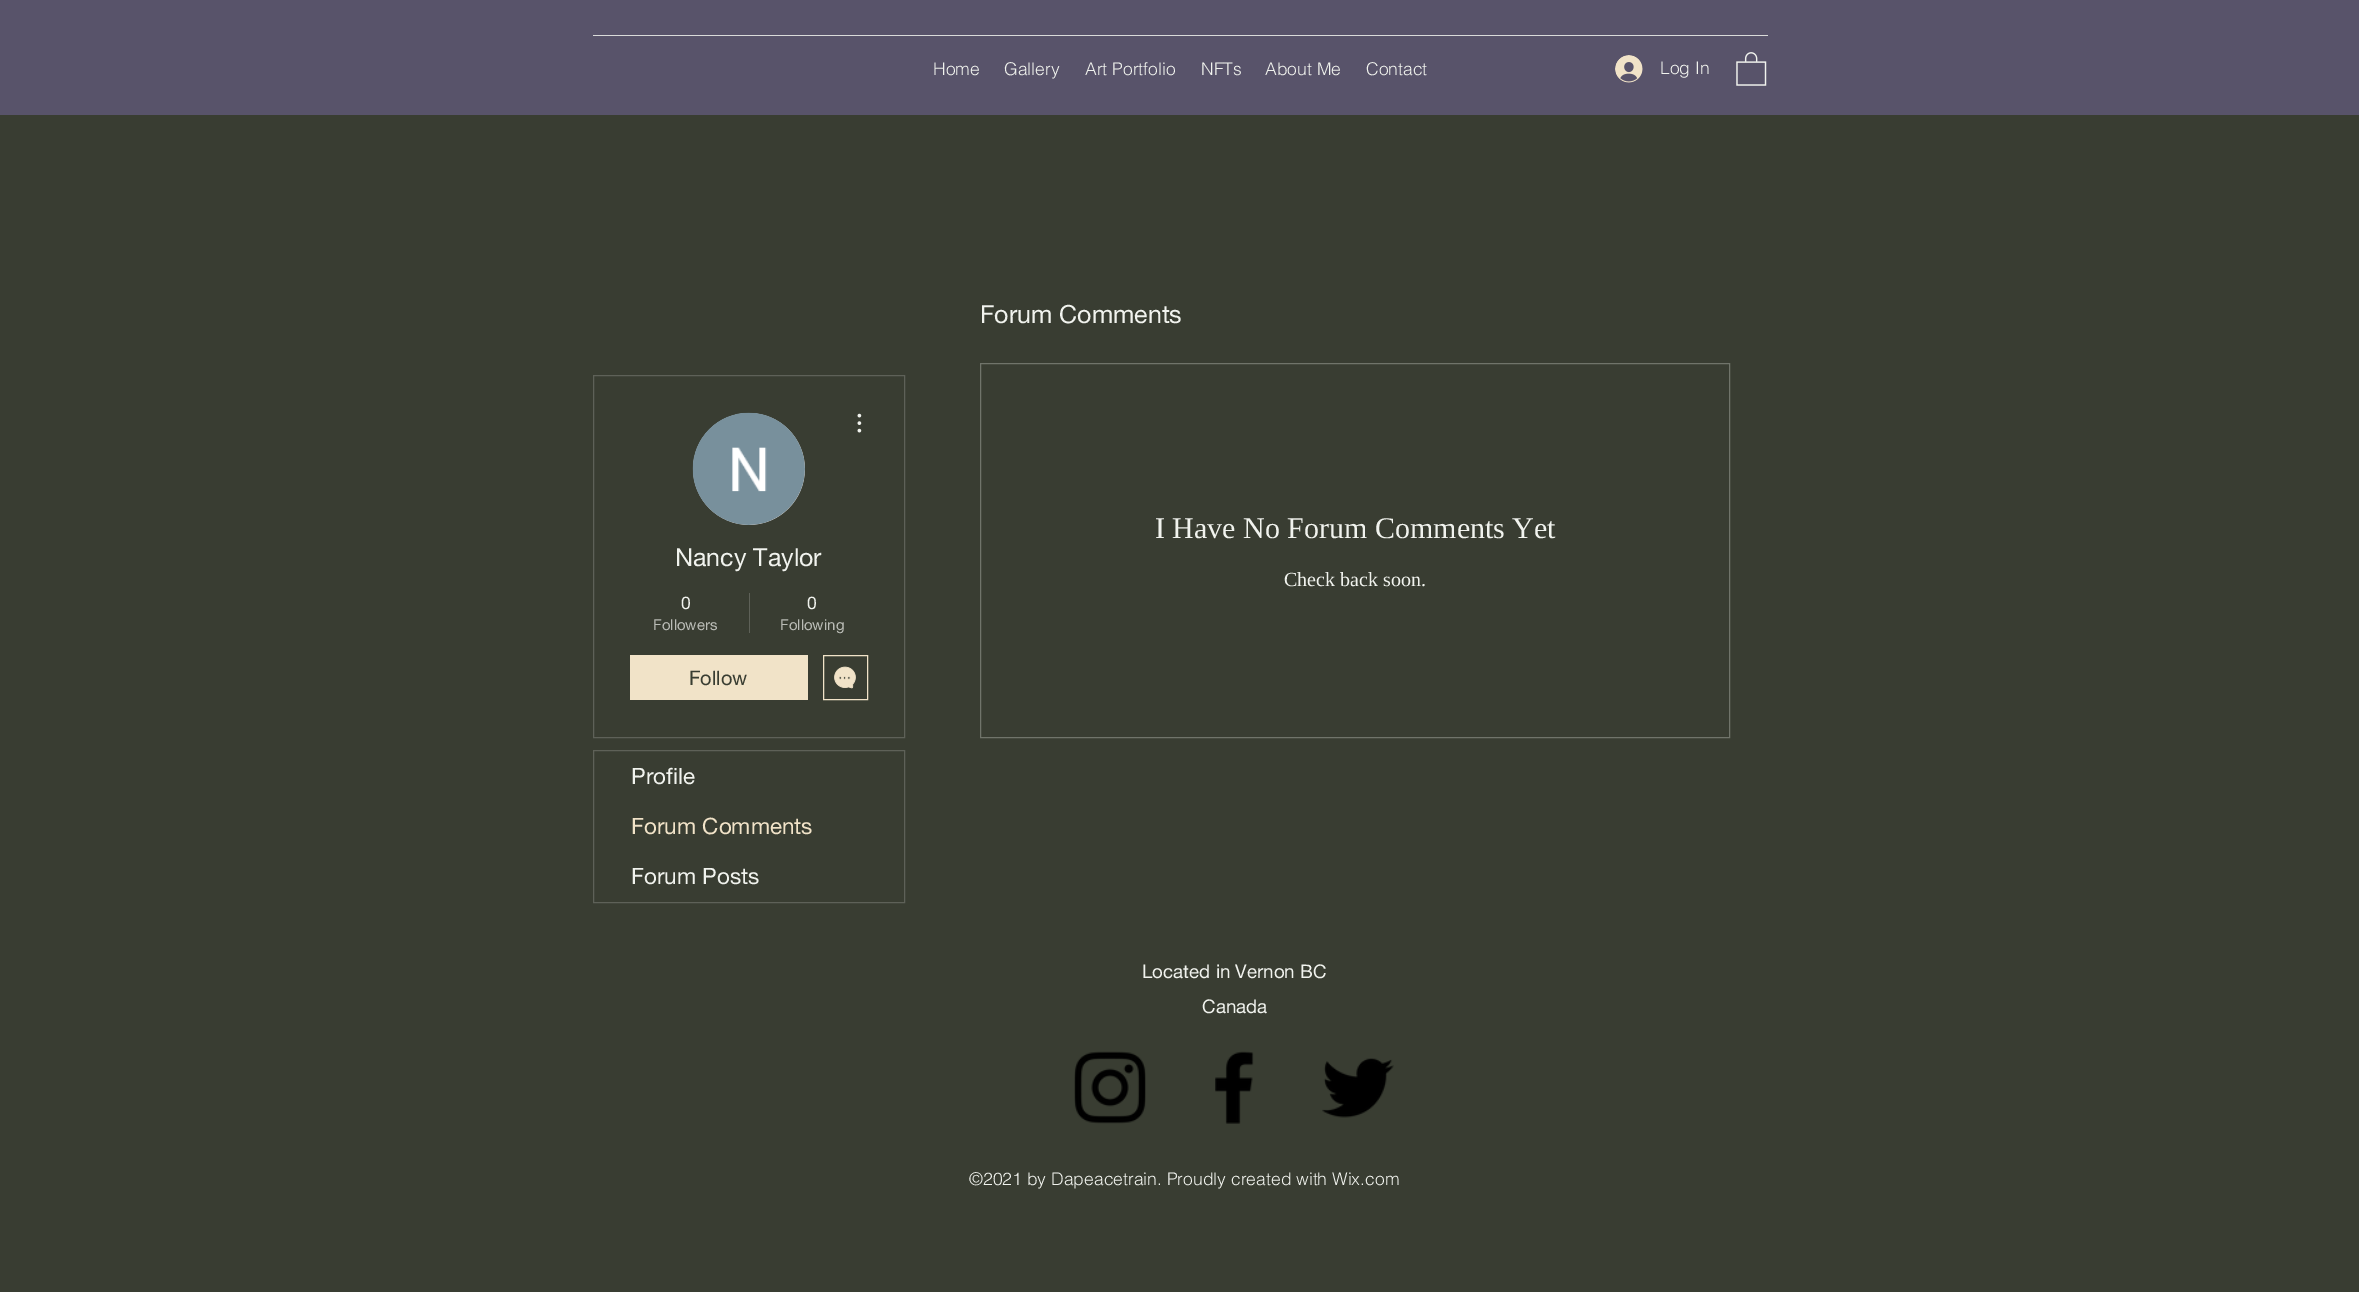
%!PS-Adobe-3.0
%%BoundingBox: 0 0 2359 1292
%%LanguageLevel: 3
%%Pages: 1
%%EndComments
%%BeginProlog
/drawimage { 5 dict begin { /h /w /y /x /name } { exch def } forall
  gsave x y translate w h scale
  w h 8 [w 0 0 h 0 0] name (r) file false 3 colorimage grestore end } def
%%EndProlog
%%BeginSetup
<< /PageSize [2359 1292] >> setpagedevice
%%EndSetup
%%Page: 1 1
0 1292 translate 1 -1 scale
4 setmiterlimit
0.224 0.239 0.196 setrgbcolor
0 0 2359 1292 rectfill
0.345 0.325 0.416 setrgbcolor
0 0 2359 115 rectfill
0.855 0.859 0.855 setrgbcolor
593 35 1175 1 rectfill
(images/1.raw) 1615 55 28 28 drawimage
(images/2.raw) 1736 52 31 34 drawimage
0.439 0.455 0.416 setrgbcolor
980.5 363.5 749 374 rectstroke
0.369 0.38 0.345 setrgbcolor
593.5 375.5 311 362 rectstroke
0.847 setgray
newpath 749 469 56 0 360 arc closepath fill
(images/3.raw) 692 412 113 113 drawimage
(images/4.raw) 857 413 5 20 drawimage
0.369 0.38 0.345 setrgbcolor
749 593 1 40 rectfill
0.945 0.89 0.784 setrgbcolor
630 655 178 45 rectfill
823.5 655.5 44 44 rectstroke
(images/5.raw) 834 666 22 23 drawimage
0.369 0.38 0.345 setrgbcolor
593.5 750.5 311 152 rectstroke
(images/6.raw) 1074 1051 72 73 drawimage
(images/7.raw) 1215 1051 39 73 drawimage
(images/8.raw) 1322 1058 72 60 drawimage
/helvetica-Light [17.5 0 0 -17.5 0 0] selectfont
0.945 0.953 0.933 setrgbcolor
933 75 moveto (Home) show
1004 75 moveto (Gallery) show
1085 75 moveto (Art Portfolio) show
1201 75 moveto (NFTs) show
1265 75 moveto (About Me) show
1366 75 moveto (Contact) show
1660 74 moveto (Log In) show
/helveticaneue-Regular [25 0 0 -25 0 0] selectfont
980 323 moveto (Forum Comments) show
/LiberationSerif-Regular [30 0 0 -30 0 0] selectfont
1155 538 moveto (I Have No Forum Comments Yet) show
/LiberationSerif-Regular [20 0 0 -20 0 0] selectfont
1284 586 moveto (Check back soon.) show
/helveticaneue-Regular [25 0 0 -25 0 0] selectfont
675 566 moveto (Nancy Taylor) show
/helveticaneue-Regular [17.5 0 0 -17.5 0 0] selectfont
681 609 moveto (0) show
/helveticaneue-Regular [15 0 0 -15 0 0] selectfont
0.729 0.737 0.714 setrgbcolor
653 630 moveto (Followers) show
/helveticaneue-Regular [17.5 0 0 -17.5 0 0] selectfont
0.945 0.953 0.933 setrgbcolor
807 609 moveto (0) show
/helveticaneue-Regular [15 0 0 -15 0 0] selectfont
0.729 0.737 0.714 setrgbcolor
780 630 moveto (Following) show
/helveticaneue-Regular [20 0 0 -20 0 0] selectfont
0.224 0.239 0.196 setrgbcolor
689 685 moveto (Follow) show
/helveticaneue-Regular [22.5 0 0 -22.5 0 0] selectfont
0.945 0.953 0.933 setrgbcolor
631 784 moveto (Profile) show
0.945 0.89 0.784 setrgbcolor
631 834 moveto (Forum Comments) show
0.945 0.953 0.933 setrgbcolor
631 884 moveto (Forum Posts) show
/helveticaneue-Regular [18.75 0 0 -18.75 0 0] selectfont
1142 978 moveto (Located in Vernon BC) show
1202 1013 moveto (Canada) show
/helvetica-Light [17.5 0 0 -17.5 0 0] selectfont
969 1185 moveto (©2021 by Dapeacetrain. Proudly created with Wix.com) show
showpage
%%EOF
